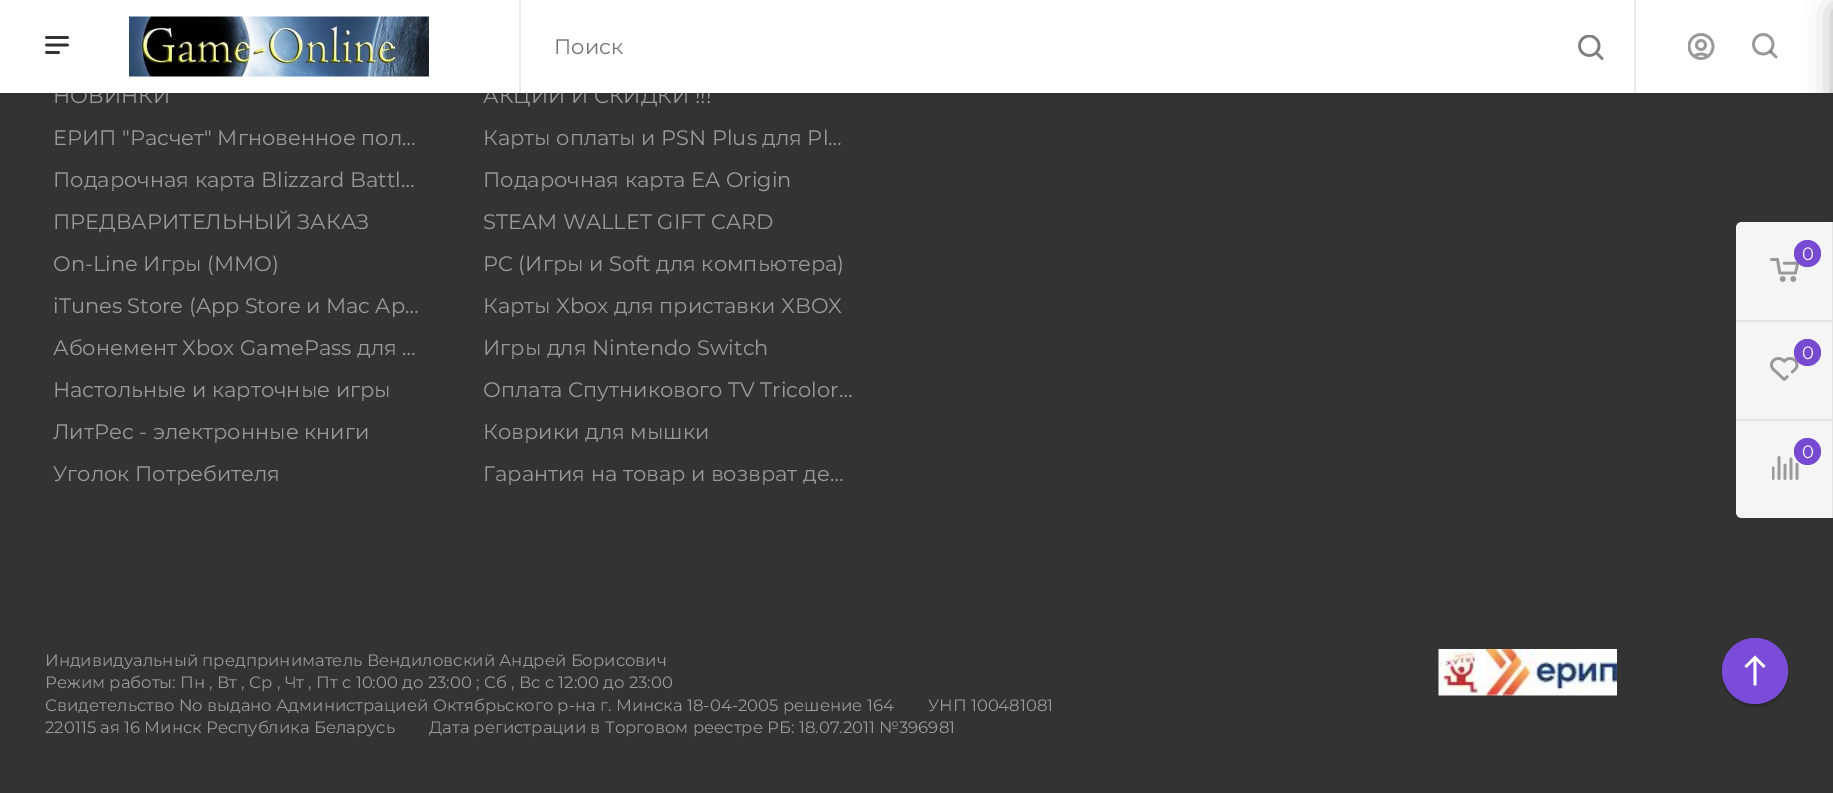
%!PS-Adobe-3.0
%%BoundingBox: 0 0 1833 793
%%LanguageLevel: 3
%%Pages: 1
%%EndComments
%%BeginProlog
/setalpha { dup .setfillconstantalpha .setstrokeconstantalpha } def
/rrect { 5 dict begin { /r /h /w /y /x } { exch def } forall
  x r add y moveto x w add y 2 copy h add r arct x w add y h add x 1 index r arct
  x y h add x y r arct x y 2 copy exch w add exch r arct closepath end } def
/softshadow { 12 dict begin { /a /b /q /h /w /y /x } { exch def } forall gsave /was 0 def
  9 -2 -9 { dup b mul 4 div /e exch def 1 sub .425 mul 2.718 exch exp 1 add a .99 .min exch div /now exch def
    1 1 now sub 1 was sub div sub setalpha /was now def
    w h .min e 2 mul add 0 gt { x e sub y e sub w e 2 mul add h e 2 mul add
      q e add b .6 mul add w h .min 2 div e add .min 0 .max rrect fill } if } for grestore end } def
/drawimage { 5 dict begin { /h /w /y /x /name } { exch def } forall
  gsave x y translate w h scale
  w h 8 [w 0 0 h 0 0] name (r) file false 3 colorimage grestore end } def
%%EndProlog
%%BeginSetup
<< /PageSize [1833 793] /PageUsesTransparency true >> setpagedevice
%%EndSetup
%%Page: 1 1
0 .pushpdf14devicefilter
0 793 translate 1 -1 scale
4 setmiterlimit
0.2 setgray
0 0 1833 793 rectfill
(images/1.raw) 1438 649 47 47 drawimage
(images/2.raw) 1485 649 132 47 drawimage
0 setgray
0 2 1833 93 0 4 0.14 softshadow
1722 641 66 66 33 1.5 0.2 softshadow
0.478 0.298 0.851 setrgbcolor
newpath 1755 671 33 0 360 arc closepath fill
1 setgray
newpath 1744.5 666 moveto 1746.5 668 lineto 1753.5 661 lineto 1753.5 685.5 lineto 1756.5 685.5 lineto 1756.5 661 lineto 1763.5 668 lineto 1765.5 666 lineto 1755 655.5 lineto closepath fill
/Montserrat-Regular [21 0 0 -21 0 0] selectfont
0.6 setgray
53 103 moveto (НОВИНКИ) show
483 103 moveto (АКЦИИ И СКИДКИ !!!) show
53 145 moveto (ЕРИП "Расчет" Мгновенное пол…) show
483 145 moveto (Карты оплаты и PSN Plus для Pl…) show
53 187 moveto (Подарочная карта Blizzard Battl…) show
483 187 moveto (Подарочная карта EA Origin) show
53 229 moveto (ПРЕДВАРИТЕЛЬНЫЙ ЗАКАЗ) show
483 229 moveto (STEAM WALLET GIFT CARD) show
53 271 moveto (On-Line Игры \(MMO\)) show
483 271 moveto (PC \(Игры и Soft для компьютера\)) show
53 313 moveto (iTunes Store \(App Store и Mac Ap…) show
483 313 moveto (Карты Xbox для приставки XBOX) show
53 355 moveto (Абонемент Xbox GamePass для …) show
483 355 moveto (Игры для Nintendo Switch) show
53 397 moveto (Настольные и карточные игры) show
483 397 moveto (Оплата Спутникового TV Tricolor…) show
53 439 moveto (ЛитРес - электронные книги) show
483 439 moveto (Коврики для мышки) show
53 481 moveto (Уголок Потребителя) show
483 481 moveto (Гарантия на товар и возврат де…) show
/Montserrat-Regular [16.5 0 0 -16.5 0 0] selectfont
45 666 moveto (Индивидуальный предприниматель Вендиловский Андрей Борисович) show
45 688 moveto (Режим работы: Пн , Вт , Ср , Чт , Пт c 10:00 до 23:00 ; Сб , Вс c 12:00 до 23:00) show
45 711 moveto (Свидетельство No выдано Администрацией Октябрьского р-на г. Минска 18-04-2005 решение 164) show
928 711 moveto (УНП 100481081) show
45 733 moveto (220115 ая 16 Минск Республика Беларусь) show
429 733 moveto (Дата регистрации в Торговом реестре РБ: 18.07.2011 №396981) show
1 setgray
0 0 1833 93 rectfill
(images/3.raw) 45 36 24 18 drawimage
(images/4.raw) 129 16 300 61 drawimage
0.925 setgray
1634 0 2 93 rectfill
519 0 2 93 rectfill
/Montserrat-Regular [21 0 0 -21 0 0] selectfont
0.459 setgray
554 54 moveto (Поиск) show
(images/5.raw) 1578 35 26 25 drawimage
(images/6.raw) 1688 33 27 27 drawimage
(images/7.raw) 1752 33 26 26 drawimage
0.173 setgray
1833 9 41 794 0 13.5 0.38 softshadow
0.961 setgray
newpath 1742 222 moveto 1833 222 lineto 1833 518 lineto 1742 518 lineto 1738.5 518 1736 515.5 1736 512 curveto 1736 228 lineto 1736 224.5 1738.5 222 1742 222 curveto closepath fill
0.89 setgray
1832 222 1 296 rectfill
1736 320 96 2 rectfill
(images/8.raw) 1770 258 29 24 drawimage
0.463 0.294 0.82 setrgbcolor
newpath 1807.5 253.5 13.5 0 360 arc closepath fill
/Montserrat-Regular [18 0 0 -18 0 0] selectfont
0.961 setgray
1802 260 moveto (0) show
0.89 setgray
1736 419 96 2 rectfill
(images/9.raw) 1770 357 29 24 drawimage
0.463 0.294 0.82 setrgbcolor
newpath 1807.5 352.5 13.5 0 360 arc closepath fill
0.961 setgray
1802 359 moveto (0) show
(images/10.raw) 1772 456 27 24 drawimage
0.463 0.294 0.82 setrgbcolor
newpath 1807.5 451.5 13.5 0 360 arc closepath fill
0.961 setgray
1802 458 moveto (0) show
.poppdf14devicefilter showpage
%%EOF
